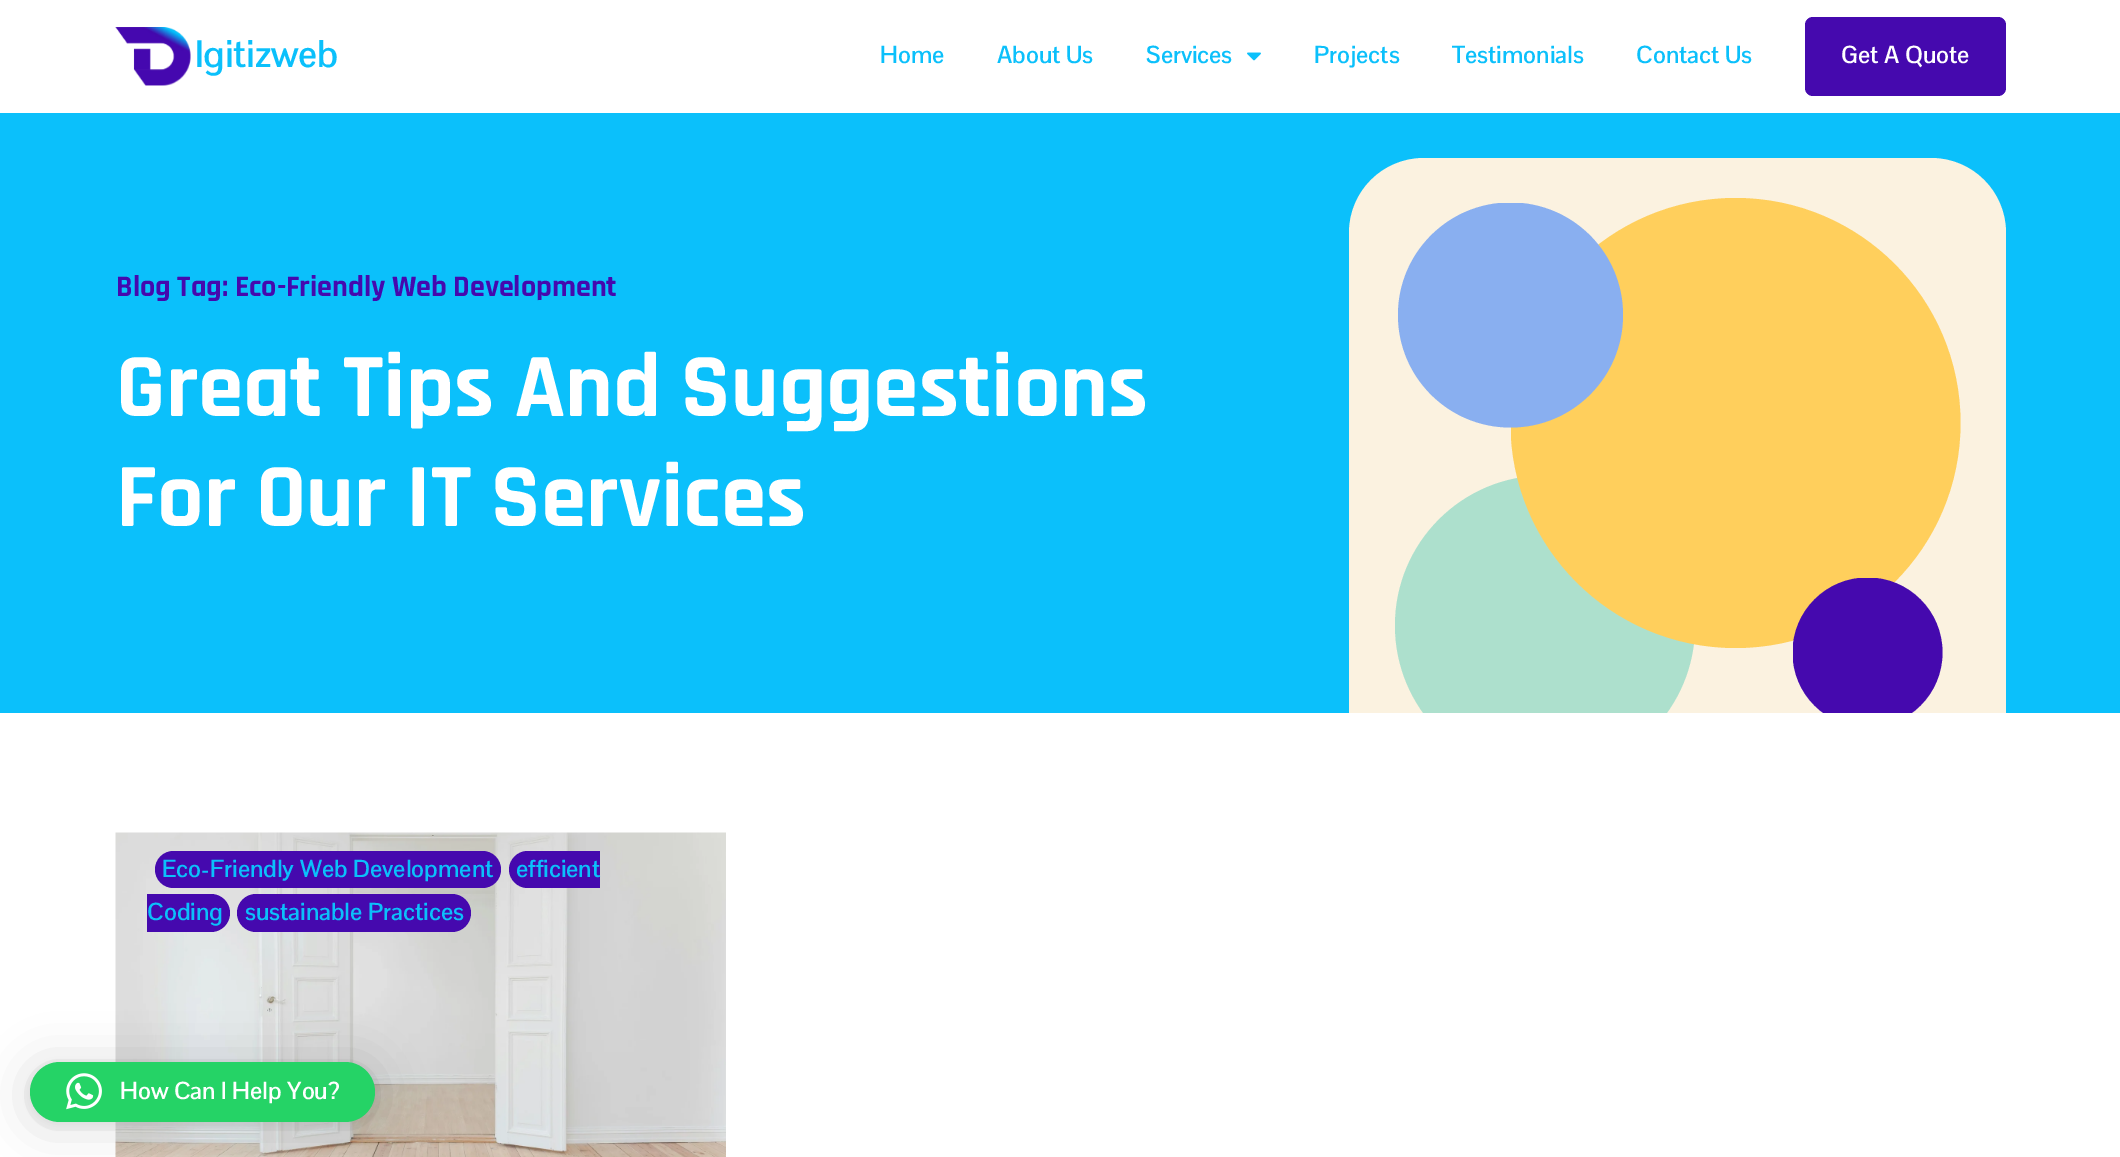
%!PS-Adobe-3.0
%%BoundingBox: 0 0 2120 1157
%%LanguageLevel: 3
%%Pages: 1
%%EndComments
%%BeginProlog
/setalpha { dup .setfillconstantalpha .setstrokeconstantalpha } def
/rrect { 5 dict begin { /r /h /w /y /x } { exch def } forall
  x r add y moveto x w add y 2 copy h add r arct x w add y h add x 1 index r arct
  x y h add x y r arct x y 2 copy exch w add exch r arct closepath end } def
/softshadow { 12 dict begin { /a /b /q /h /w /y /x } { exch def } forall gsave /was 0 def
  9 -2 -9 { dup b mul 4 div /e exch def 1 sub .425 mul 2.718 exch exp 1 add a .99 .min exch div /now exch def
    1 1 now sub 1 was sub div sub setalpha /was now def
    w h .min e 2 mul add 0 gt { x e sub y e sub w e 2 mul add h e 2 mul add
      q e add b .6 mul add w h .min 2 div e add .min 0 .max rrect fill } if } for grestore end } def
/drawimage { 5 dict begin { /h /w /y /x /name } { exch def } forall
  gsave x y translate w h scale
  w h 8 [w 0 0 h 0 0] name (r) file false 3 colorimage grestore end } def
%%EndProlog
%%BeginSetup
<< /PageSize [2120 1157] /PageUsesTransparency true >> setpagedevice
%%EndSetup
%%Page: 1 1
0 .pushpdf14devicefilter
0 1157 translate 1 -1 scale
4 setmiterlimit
1 setgray
0 0 2120 1157 rectfill
(images/1.raw) 115 27 76 59 drawimage
(images/2.raw) 1247 52 14 9 drawimage
0.271 0.035 0.682 setrgbcolor
1805 17 201 79 8 rrect fill
0.043 0.753 0.984 setrgbcolor
0 113 2120 600 rectfill
0.984 0.949 0.878 setrgbcolor
newpath 1424 158 moveto 1931 158 lineto 1972.5 158 2006 191.5 2006 233 curveto 2006 713 lineto 1349 713 lineto 1349 233 lineto 1349 191.5 1382.5 158 1424 158 curveto closepath fill
gsave
1395 476 300 237 rectclip
0.678 0.878 0.804 setrgbcolor
newpath 1545 625.5 150 0 360 arc closepath fill
grestore
gsave
1511 198 450 450 rectclip
1 0.812 0.361 setrgbcolor
newpath 1735.5 423 225 0 360 arc closepath fill
grestore
gsave
1398 203 225 225 rectclip
0.537 0.686 0.941 setrgbcolor
newpath 1510.5 315 112.5 0 360 arc closepath fill
grestore
gsave
1793 578 150 135 rectclip
0.271 0.035 0.682 setrgbcolor
newpath 1867.5 652.5 75 0 360 arc closepath fill
grestore
(images/3.raw) 115 832 611 325 drawimage
0.271 0.035 0.682 setrgbcolor
155 851 346 37 18.5 rrect fill
newpath 527.5 851 moveto 600 851 lineto 600 888 lineto 527.5 888 lineto 517.5 888 509 879.5 509 869.5 curveto 509 859.5 517.5 851 527.5 851 curveto closepath fill
newpath 147 894 moveto 211 894 lineto 221.5 894 230 902.5 230 913 curveto 230 923.5 221.5 932 211 932 curveto 147 932 lineto closepath fill
237 894 234 38 19 rrect fill
0 setgray
30 1065 345 60 30 24 0.16 softshadow
30 1064 345 60 30 4.5 0.06 softshadow
0.145 0.827 0.4 setrgbcolor
30 1062 345 60 30 rrect fill
(images/4.raw) 66 1073 36 37 drawimage
/PontanoSans-Bold [37.5 0 0 -37.5 0 0] selectfont
0.043 0.753 0.984 setrgbcolor
195 67 moveto (Igitizweb) show
/PontanoSans-Bold [24 0 0 -24 0 0] selectfont
880 63 moveto (Home) show
997 63 moveto (About Us) show
1146 63 moveto (Services) show
1314 63 moveto (Projects) show
1452 63 moveto (Testimonials) show
1636 63 moveto (Contact Us) show
1 setgray
1841 63 moveto (Get A Quote) show
/Rajdhani-Bold [30 0 0 -30 0 0] selectfont
0.271 0.035 0.682 setrgbcolor
116 296 moveto (Blog Tag: Eco-Friendly Web Development) show
/Rajdhani-Bold [91.5 0 0 -91.5 0 0] selectfont
1 setgray
116 416 moveto (Great Tips And Suggestions) show
116 526 moveto (For Our IT Services) show
/PontanoSans-Bold [24 0 0 -24 0 0] selectfont
0.043 0.753 0.984 setrgbcolor
162 877 moveto (Eco-Friendly Web Development) show
516 877 moveto (efficient) show
147 920 moveto (Coding) show
245 920 moveto (sustainable Practices) show
1 setgray
120 1099 moveto (How Can I Help You?) show
.poppdf14devicefilter showpage
%%EOF
